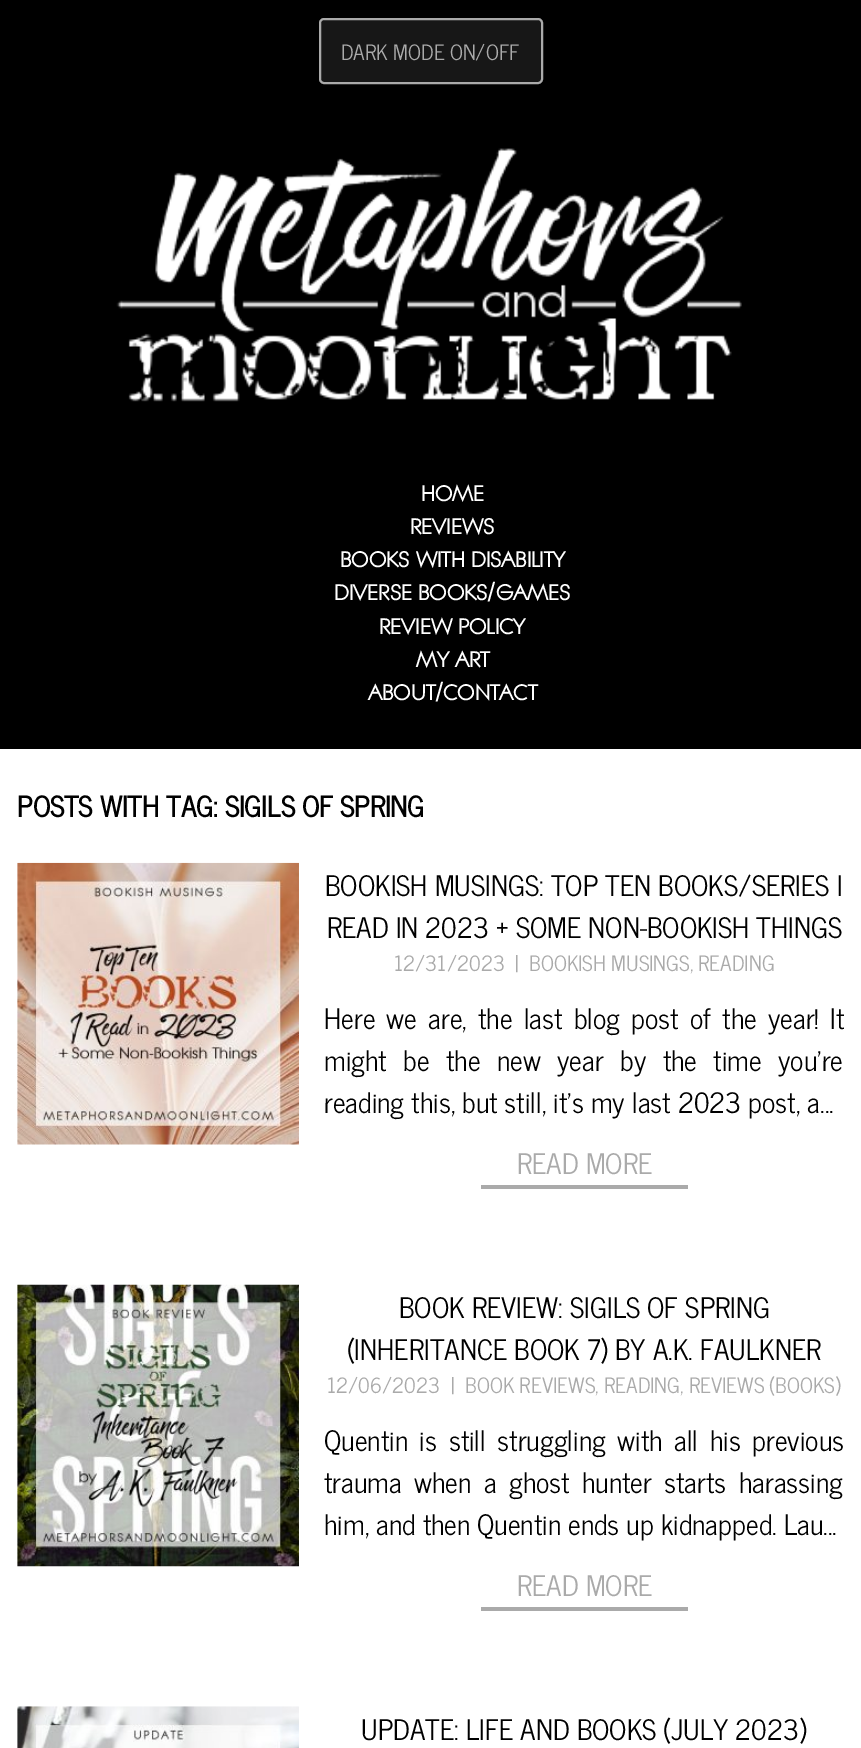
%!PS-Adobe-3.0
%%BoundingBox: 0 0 861 1748
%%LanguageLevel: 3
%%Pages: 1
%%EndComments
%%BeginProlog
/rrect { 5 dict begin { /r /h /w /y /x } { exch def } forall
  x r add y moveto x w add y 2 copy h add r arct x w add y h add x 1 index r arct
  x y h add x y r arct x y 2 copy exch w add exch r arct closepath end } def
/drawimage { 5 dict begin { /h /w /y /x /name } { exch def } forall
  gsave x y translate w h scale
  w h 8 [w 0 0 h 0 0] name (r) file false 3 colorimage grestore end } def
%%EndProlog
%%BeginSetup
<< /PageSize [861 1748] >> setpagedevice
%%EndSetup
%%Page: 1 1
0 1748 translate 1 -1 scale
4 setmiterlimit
1 setgray
0 0 861 1748 rectfill
0 setgray
0 0 861 749 rectfill
0.09 setgray
320 19 222 64 4 rrect gsave fill grestore
0.667 setgray
2 setlinewidth
stroke
(images/1.raw) 116 148 626 254 drawimage
(images/2.raw) 17 862 282 283 drawimage
481 1185 207 4 rectfill
(images/3.raw) 17 1284 282 283 drawimage
481 1607 207 4 rectfill
(images/4.raw) 17 1706 282 42 drawimage
/NewsCycle-Regular [21 0 0 -21 0 0] selectfont
341 60 moveto (DARK MODE ON/OFF) show
/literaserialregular-Bold [21 0 0 -21 0 0] selectfont
1 setgray
421 501 moveto (HOME) show
410 534 moveto (REVIEWS) show
340 567 moveto (BOOKS WITH DISABILITY) show
334 600 moveto (DIVERSE BOOKS/GAMES) show
379 634 moveto (REVIEW POLICY) show
416 667 moveto (MY ART) show
368 700 moveto (ABOUT/CONTACT) show
/NewsCycle-Bold [28 0 0 -28 0 0] selectfont
0 setgray
17 817 moveto (POSTS WITH TAG: SIGILS OF SPRING) show
/NewsCycle-Regular [28 0 0 -28 0 0] selectfont
325 896 moveto (BOOKISH MUSINGS: TOP TEN BOOKS/SERIES I) show
327 938 moveto (READ IN 2023 + SOME NON-BOOKISH THINGS) show
/NewsCycle-Regular [21 0 0 -21 0 0] selectfont
0.667 setgray
394 971 moveto (12/31/2023) show
515 971 moveto (|) show
529 971 moveto (BOOKISH MUSINGS, READING) show
/NewsCycle-Regular [28 0 0 -28 0 0] selectfont
0 setgray
324 1029 moveto 4.25 0 32 (Here we are, the last blog post of the year! It) widthshow
324 1071 moveto 9.5 0 32 (might be the new year by the time you're) widthshow
324 1113 moveto (reading this, but still, it's my last 2023 post, a...) show
0.667 setgray
517 1174 moveto (READ MORE) show
0 setgray
399 1318 moveto (BOOK REVIEW: SIGILS OF SPRING) show
347 1360 moveto (\(INHERITANCE BOOK 7\) BY A.K. FAULKNER) show
/NewsCycle-Regular [21 0 0 -21 0 0] selectfont
0.667 setgray
327 1393 moveto (12/06/2023) show
451 1393 moveto (|) show
465 1393 moveto (BOOK REVIEWS, READING, REVIEWS \(BOOKS\)) show
/NewsCycle-Regular [28 0 0 -28 0 0] selectfont
0 setgray
324 1451 moveto 4.5 0 32 (Quentin is still struggling with all his previous) widthshow
324 1493 moveto 5.5 0 32 (trauma when a ghost hunter starts harassing) widthshow
324 1535 moveto (him, and then Quentin ends up kidnapped. Lau...) show
0.667 setgray
517 1596 moveto (READ MORE) show
0 setgray
361 1740 moveto (UPDATE: LIFE AND BOOKS \(JULY 2023\)) show
showpage
%%EOF
